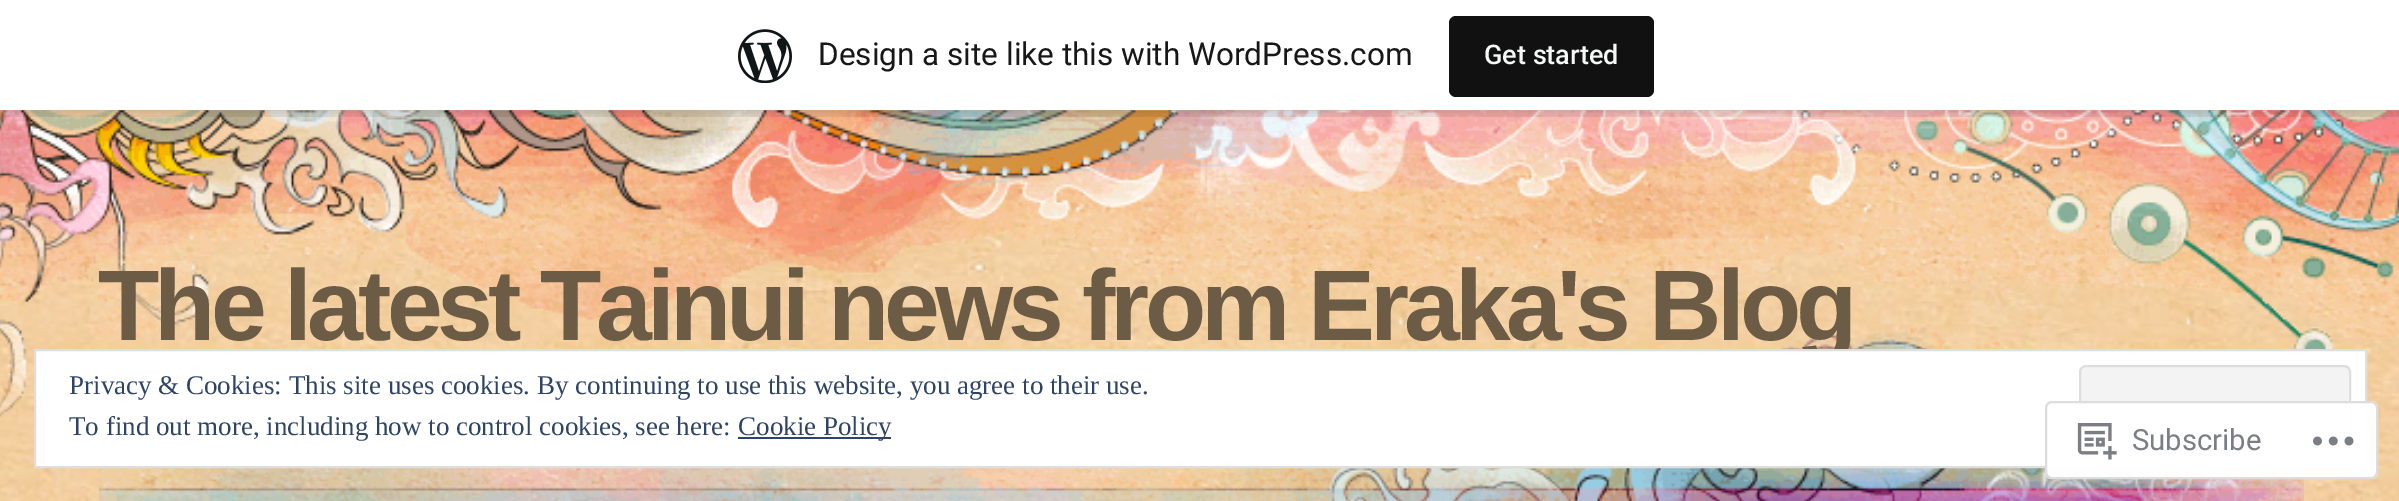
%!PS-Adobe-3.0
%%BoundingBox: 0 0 2399 501
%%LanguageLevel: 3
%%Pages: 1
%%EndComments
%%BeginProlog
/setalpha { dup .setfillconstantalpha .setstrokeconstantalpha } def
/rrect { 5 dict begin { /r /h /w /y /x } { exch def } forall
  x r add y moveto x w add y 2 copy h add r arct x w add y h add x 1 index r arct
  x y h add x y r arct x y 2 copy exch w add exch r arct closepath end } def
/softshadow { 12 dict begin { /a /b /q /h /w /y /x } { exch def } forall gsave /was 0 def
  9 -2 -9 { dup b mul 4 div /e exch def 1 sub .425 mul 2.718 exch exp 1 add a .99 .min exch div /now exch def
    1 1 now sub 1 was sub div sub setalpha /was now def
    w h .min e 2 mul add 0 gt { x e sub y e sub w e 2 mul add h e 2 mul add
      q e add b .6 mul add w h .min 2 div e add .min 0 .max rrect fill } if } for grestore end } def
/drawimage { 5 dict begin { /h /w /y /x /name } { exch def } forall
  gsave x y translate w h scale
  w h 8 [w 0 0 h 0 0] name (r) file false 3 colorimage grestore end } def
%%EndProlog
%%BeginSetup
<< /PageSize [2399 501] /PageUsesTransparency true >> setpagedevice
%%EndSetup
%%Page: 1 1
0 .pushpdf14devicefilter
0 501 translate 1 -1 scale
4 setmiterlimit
1 setgray
0 0 2399 501 rectfill
(images/1.raw) 0 110 2399 391 drawimage
(images/3.raw) 0 110 2399 307 drawimage
0 setgray
0 2 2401 111 0 2 0.05 softshadow
0.08 setalpha
newpath 2 110 moveto 2 117 lineto 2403 117 lineto 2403 7 lineto 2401 7 lineto 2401 110 lineto closepath fill
1 setalpha
1 setgray
0 0 2399 110 rectfill
(images/2.raw) 738 29 54 54 drawimage
0.067 setgray
1449 16 205 81 7 rrect fill
(images/4.raw) 99 328 2205 173 drawimage
/Roboto-Regular [31.5 0 0 -31.5 0 0] selectfont
0.09 setgray
818 65 moveto (Design a site like this with WordPress.com) show
/Roboto-Medium [27 0 0 -27 0 0] selectfont
0.965 0.969 0.969 setrgbcolor
1484 64 moveto (Get started) show
/LiberationSans-Bold [100.4 0 0 -100.4 0 0] selectfont
0.424 0.361 0.275 setrgbcolor
98 340 moveto -5 0 (The latest Tainui news from Eraka's Blog) ashow
1 setgray
newpath 35 350 moveto 2366 350 lineto 2366 467 lineto 35 467 lineto closepath gsave fill grestore
0.871 setgray
2 setlinewidth
stroke
/LiberationSerif-Regular [27 0 0 -27 0 0] selectfont
0.18 0.267 0.404 setrgbcolor
69 394 moveto (Privacy & Cookies: This site uses cookies. By continuing to use this website, you agree to their use.) show
0.953 setgray
2080 366 270 85 6 rrect gsave fill grestore
0.871 setgray
stroke
0.18 0.267 0.404 setrgbcolor
69 435 moveto (To find out more, including how to control cookies, see here:) show
738 437 153 2 rectfill
738 435 moveto (Cookie Policy) show
0.98 setalpha
1 setgray
2045 401 333 78 7 rrect fill
0.863 0.863 0.871 setrgbcolor
2046 402 331 76 6 rrect stroke
1 setalpha
(images/5.raw) 2077 423 40 37 drawimage
/Roboto-Regular [29.25 0 0 -29.25 0 0] selectfont
0.482 0.498 0.518 setrgbcolor
2132 450 moveto (Subscribe) show
(images/6.raw) 2313 436 41 10 drawimage
.poppdf14devicefilter showpage
%%EOF
